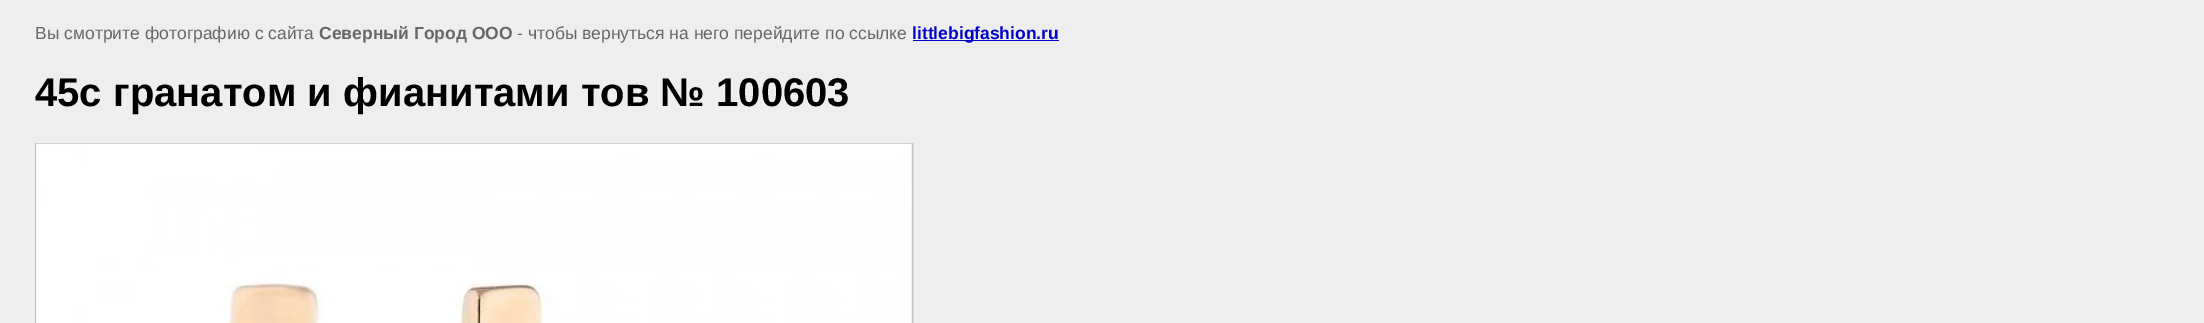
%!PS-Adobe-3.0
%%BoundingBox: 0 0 2204 323
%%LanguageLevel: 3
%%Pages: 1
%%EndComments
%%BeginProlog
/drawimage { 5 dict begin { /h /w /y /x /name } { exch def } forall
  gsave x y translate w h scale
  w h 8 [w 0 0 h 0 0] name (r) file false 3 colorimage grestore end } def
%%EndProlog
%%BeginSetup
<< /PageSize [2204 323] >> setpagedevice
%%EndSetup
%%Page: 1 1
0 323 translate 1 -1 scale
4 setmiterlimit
0.933 setgray
0 0 2204 323 rectfill
0 0 0.8 setrgbcolor
913 40 146 1 rectfill
0.753 setgray
35.5 143.5 877 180 rectstroke
(images/1.raw) 36 143 876 180 drawimage
/LiberationSans-Regular [17.5 0 0 -17.5 0 0] selectfont
0.4 setgray
35 39 moveto (Вы смотрите фотографию с сайта) show
/LiberationSans-Bold [17.5 0 0 -17.5 0 0] selectfont
319 39 moveto (Северный Город ООО) show
/LiberationSans-Regular [17.5 0 0 -17.5 0 0] selectfont
517 39 moveto (- чтобы вернуться на него перейдите по ссылке) show
/LiberationSans-Bold [17.5 0 0 -17.5 0 0] selectfont
0 0 0.8 setrgbcolor
912 39 moveto (littlebigfashion.ru) show
/LiberationSans-Bold [40 0 0 -40 0 0] selectfont
0 setgray
35 106 moveto (45с гранатом и фианитами тов № 100603) show
showpage
%%EOF
